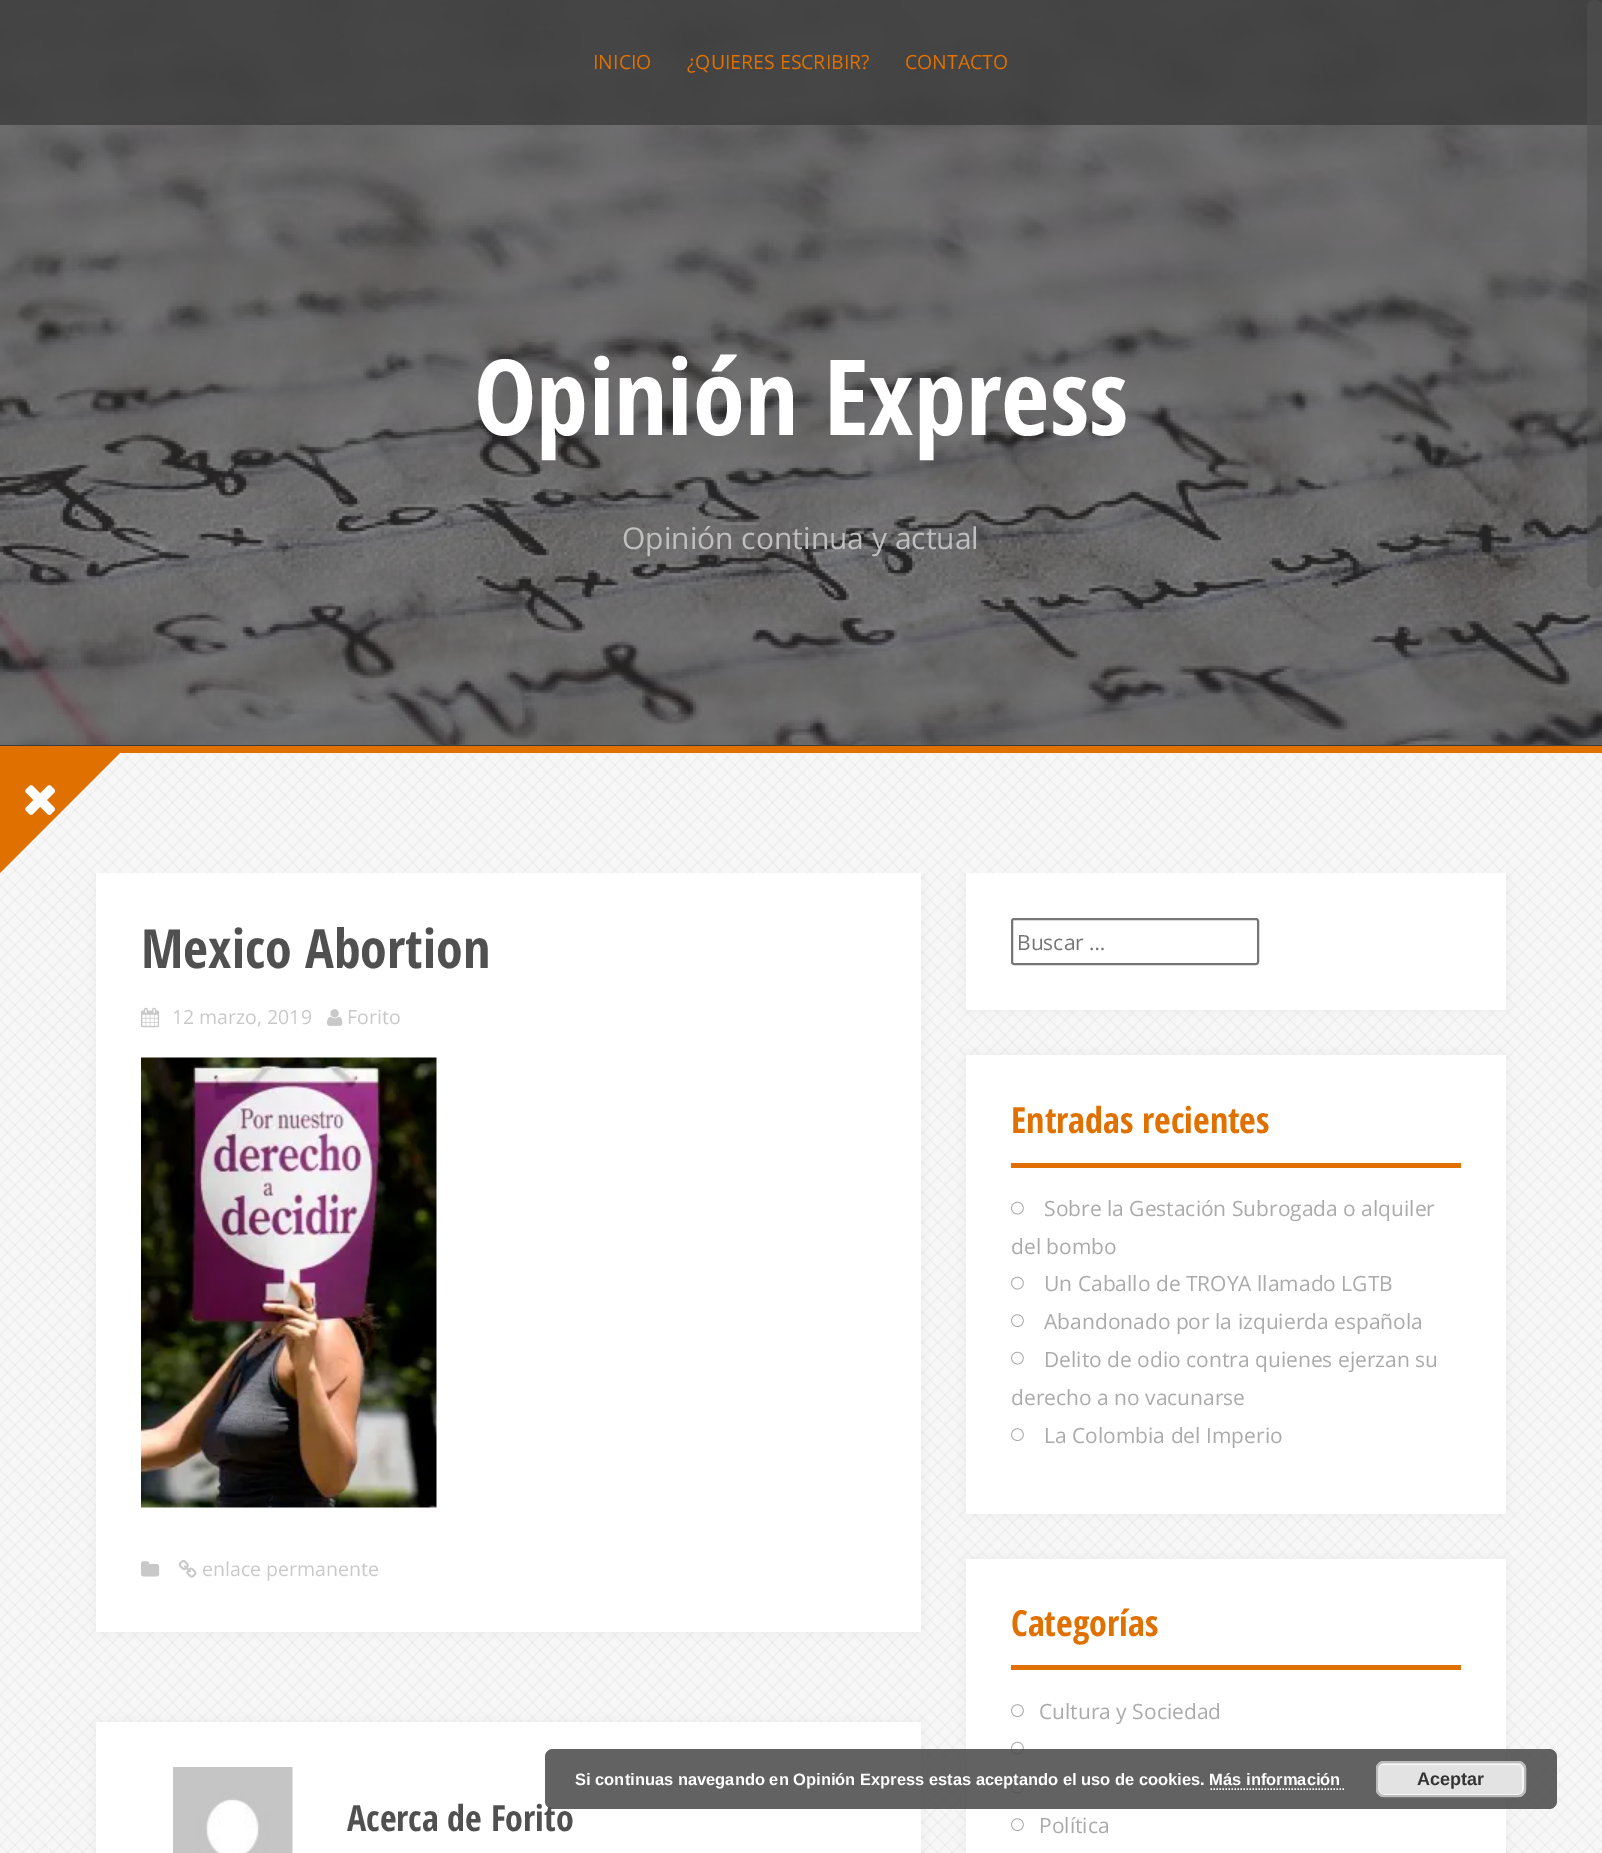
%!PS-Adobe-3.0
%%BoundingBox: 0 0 1602 1853
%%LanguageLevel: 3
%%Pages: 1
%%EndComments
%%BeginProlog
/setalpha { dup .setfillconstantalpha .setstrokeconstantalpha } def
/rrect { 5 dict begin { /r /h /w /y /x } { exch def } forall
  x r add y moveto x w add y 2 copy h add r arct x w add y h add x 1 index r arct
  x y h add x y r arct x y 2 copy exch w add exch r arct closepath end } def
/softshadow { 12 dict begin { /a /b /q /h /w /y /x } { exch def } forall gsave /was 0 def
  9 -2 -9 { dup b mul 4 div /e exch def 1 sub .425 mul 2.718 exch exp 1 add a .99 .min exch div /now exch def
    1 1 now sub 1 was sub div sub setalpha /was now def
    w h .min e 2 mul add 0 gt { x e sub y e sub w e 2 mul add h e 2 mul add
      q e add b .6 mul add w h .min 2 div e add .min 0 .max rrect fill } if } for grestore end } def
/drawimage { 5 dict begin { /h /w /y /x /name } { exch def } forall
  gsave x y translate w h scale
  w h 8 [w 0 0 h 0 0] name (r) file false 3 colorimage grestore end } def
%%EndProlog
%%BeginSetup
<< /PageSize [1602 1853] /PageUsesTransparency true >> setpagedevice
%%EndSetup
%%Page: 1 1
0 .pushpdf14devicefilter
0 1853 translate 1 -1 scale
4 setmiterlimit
0.969 setgray
0 0 1602 1853 rectfill
(images/1.raw) 0 753 1602 1100 drawimage
0.235 setgray
0 0 1602 746 rectfill
0.878 0.439 0 setrgbcolor
0 746 1602 7 rectfill
(images/2.raw) 0 0 1602 745 drawimage
0.8 setalpha
0.235 setgray
0 0 1602 125 rectfill
gsave
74 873 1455 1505 rectclip
1 setalpha
0.51 0.557 0.58 setrgbcolor
96 873 825 759 0 7.5 0.1 softshadow
grestore
1 setalpha
0.878 0.439 0 setrgbcolor
newpath 0 873 moveto 0 753 lineto 120 753 lineto closepath fill
(images/3.raw) 25 785 31 30 drawimage
1 setgray
96 873 825 759 rectfill
(images/4.raw) 141 1007 19 21 drawimage
(images/5.raw) 327 1009 16 17 drawimage
(images/6.raw) 141 1057 296 451 drawimage
(images/7.raw) 141 1561 19 16 drawimage
(images/8.raw) 178 1560 19 18 drawimage
0.51 0.557 0.58 setrgbcolor
96 1722 825 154 0 7.5 0.1 softshadow
1 setgray
96 1722 825 131 rectfill
(images/9.raw) 173 1767 120 86 drawimage
gsave
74 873 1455 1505 rectclip
0.51 0.557 0.58 setrgbcolor
966 873 540 137 0 7.5 0.1 softshadow
grestore
966 873 540 137 rectfill
0.463 setgray
2 setlinewidth
1012 919 246 45 2 rrect stroke
0.51 0.557 0.58 setrgbcolor
966 1055 540 459 0 7.5 0.1 softshadow
1 setgray
966 1055 540 459 rectfill
0.878 0.439 0 setrgbcolor
1011 1163 450 5 rectfill
(images/10.raw) 1011 1201 13 14 drawimage
(images/10.raw) 1011 1276 13 14 drawimage
(images/11.raw) 1011 1314 13 13 drawimage
(images/10.raw) 1011 1351 13 14 drawimage
(images/11.raw) 1011 1428 13 13 drawimage
0.51 0.557 0.58 setrgbcolor
966 1559 540 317 0 7.5 0.1 softshadow
1 setgray
966 1559 540 294 rectfill
0.878 0.439 0 setrgbcolor
1011 1665 450 5 rectfill
(images/11.raw) 1011 1704 13 13 drawimage
(images/10.raw) 1011 1741 13 14 drawimage
(images/10.raw) 1011 1780 13 14 drawimage
(images/11.raw) 1011 1818 13 13 drawimage
0.5 setalpha
0.322 setgray
1587 0 15 588 7.5 rrect fill
/OpenSans-Regular [19.5 0 0 -19.5 0 0] selectfont
1 setalpha
0.878 0.439 0 setrgbcolor
593 69 moveto (INICIO) show
687 69 moveto (¿QUIERES ESCRIBIR?) show
905 69 moveto (CONTACTO) show
/OpenSansCondensed-Bold [105 0 0 -105 0 0] selectfont
1 setgray
474 435 moveto (Opinión Express) show
/OpenSans-Regular [30 0 0 -30 0 0] selectfont
0.749 setgray
622 549 moveto (Opinión continua y actual) show
/OpenSansCondensed-Bold [54 0 0 -54 0 0] selectfont
0.314 setgray
141 968 moveto (Mexico Abortion) show
/OpenSans-Regular [19.5 0 0 -19.5 0 0] selectfont
0.784 setgray
172 1024 moveto (12 marzo, 2019) show
347 1024 moveto (Forito) show
202 1576 moveto (enlace permanente) show
/OpenSansCondensed-Bold [36 0 0 -36 0 0] selectfont
0.314 setgray
347 1831 moveto (Acerca de Forito) show
/OpenSans-Regular [21 0 0 -21 0 0] selectfont
0.459 setgray
1017 950 moveto (Buscar …) show
/OpenSansCondensed-Bold [36 0 0 -36 0 0] selectfont
0.878 0.439 0 setrgbcolor
1011 1133 moveto (Entradas recientes) show
/OpenSans-Regular [21 0 0 -21 0 0] selectfont
0.667 setgray
1044 1216 moveto (Sobre la Gestación Subrogada o alquiler) show
1011 1254 moveto (del bombo) show
1044 1291 moveto (Un Caballo de TROYA llamado LGTB) show
1044 1329 moveto (Abandonado por la izquierda española) show
1044 1367 moveto (Delito de odio contra quienes ejerzan su) show
1011 1405 moveto (derecho a no vacunarse) show
1044 1443 moveto (La Colombia del Imperio) show
/OpenSansCondensed-Bold [36 0 0 -36 0 0] selectfont
0.878 0.439 0 setrgbcolor
1011 1636 moveto (Categorías) show
/OpenSans-Regular [21 0 0 -21 0 0] selectfont
0.667 setgray
1039 1719 moveto (Cultura y Sociedad) show
1039 1833 moveto (Política) show
0.85 setalpha
0.278 setgray
545 1749 1012 60 8 rrect fill
/LiberationSans-Bold [16.5 0 0 -16.5 0 0] selectfont
1 setalpha
1 setgray
575 1785 moveto (Si continuas navegando en Opinión Express estas aceptando el uso de cookies. Más información) show
0.89 setgray
1376 1761 150 36 8 rrect fill
0.965 setgray
1378 1764 145 31 5 rrect stroke
0.733 setgray
1377 1762 148 34 7 rrect stroke
/LiberationSans-Bold [18 0 0 -18 0 0] selectfont
0.2 setgray
1417 1785 moveto (Aceptar) show
1 setgray
1.5 setlinewidth
[1.5 1.5] 0 setdash
newpath 1210.5 1789 moveto 1345.5 1789 lineto stroke
.poppdf14devicefilter showpage
%%EOF
